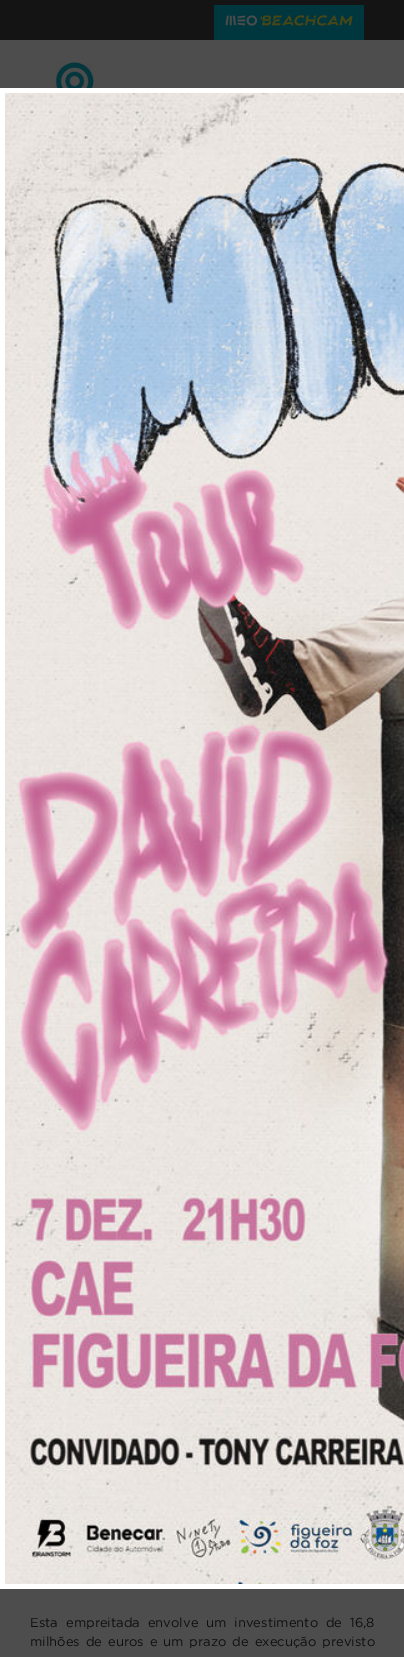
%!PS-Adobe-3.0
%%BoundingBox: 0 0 404 1657
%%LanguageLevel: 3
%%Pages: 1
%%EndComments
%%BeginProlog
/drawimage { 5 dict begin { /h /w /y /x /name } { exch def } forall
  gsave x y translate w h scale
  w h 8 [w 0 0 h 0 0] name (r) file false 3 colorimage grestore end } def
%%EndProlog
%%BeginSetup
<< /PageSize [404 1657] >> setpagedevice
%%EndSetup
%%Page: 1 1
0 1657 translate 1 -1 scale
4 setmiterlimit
0.302 setgray
0 0 404 1657 rectfill
0.078 setgray
0 0 404 40 rectfill
0 0.212 0.243 setrgbcolor
214 5 150 35 rectfill
(images/1.raw) 225 15 128 11 drawimage
(images/2.raw) 55 62 39 26 drawimage
1 setgray
0 88 404 1501 rectfill
(images/3.raw) 5 93 399 1491 drawimage
/Gotham-Regular [13 0 0 -13 0 0] selectfont
0.059 setgray
30 1627 moveto 4 0 32 (Esta empreitada envolve um investimento de 16,8) widthshow
30 1646 moveto 2 0 32 (milhões de euros e um prazo de execução previsto) widthshow
showpage
%%EOF
